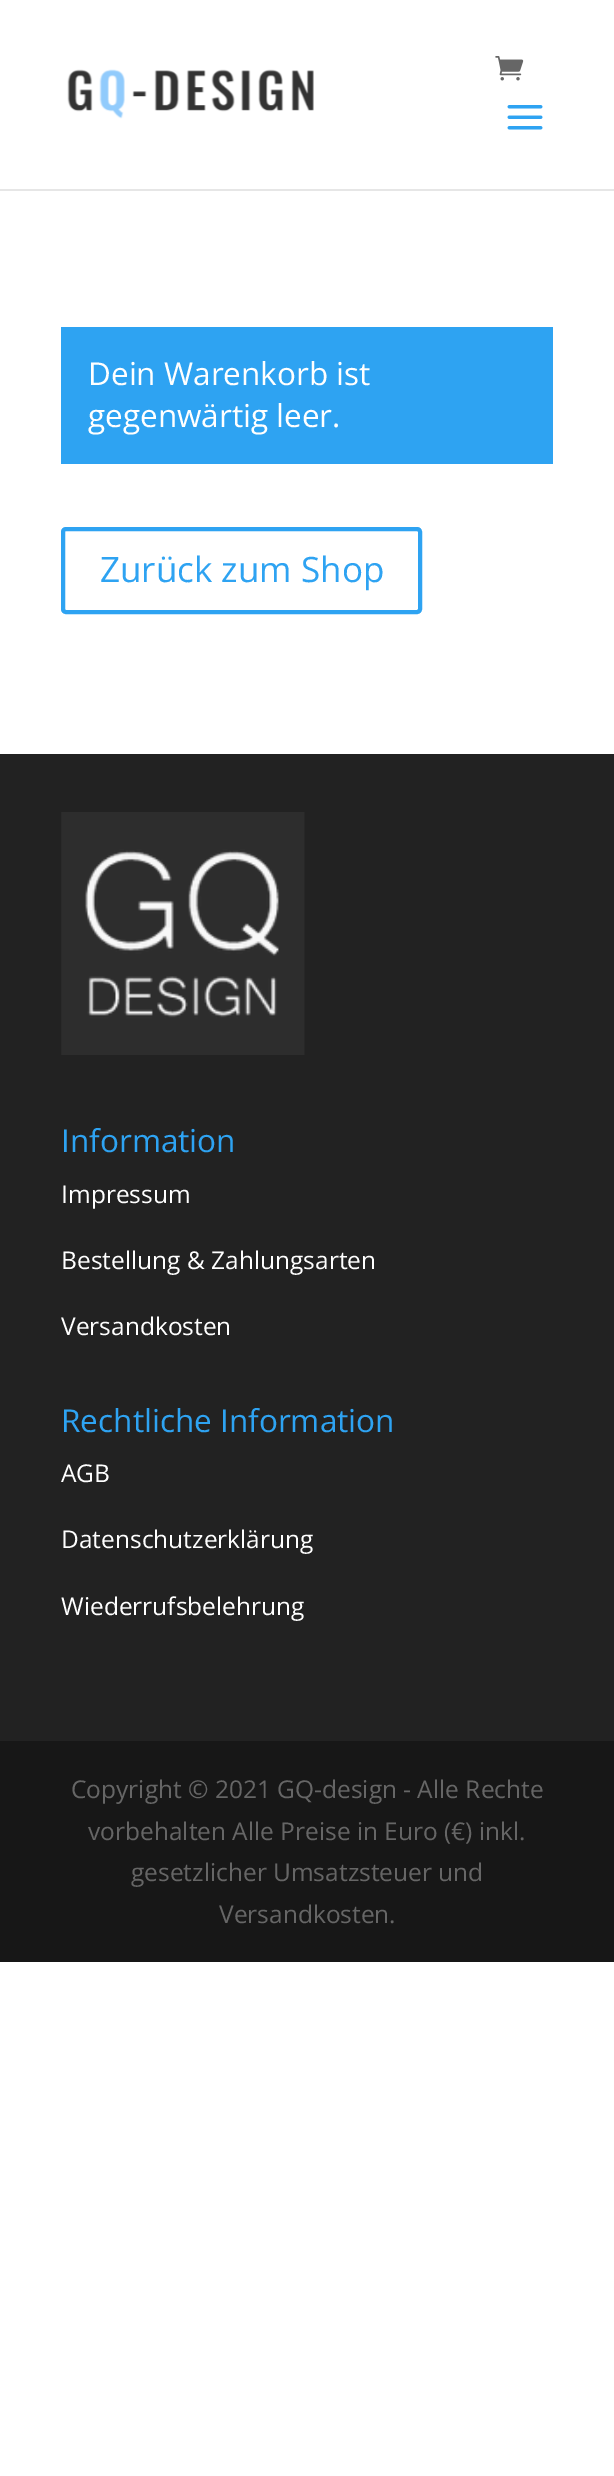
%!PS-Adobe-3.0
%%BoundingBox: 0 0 614 2476
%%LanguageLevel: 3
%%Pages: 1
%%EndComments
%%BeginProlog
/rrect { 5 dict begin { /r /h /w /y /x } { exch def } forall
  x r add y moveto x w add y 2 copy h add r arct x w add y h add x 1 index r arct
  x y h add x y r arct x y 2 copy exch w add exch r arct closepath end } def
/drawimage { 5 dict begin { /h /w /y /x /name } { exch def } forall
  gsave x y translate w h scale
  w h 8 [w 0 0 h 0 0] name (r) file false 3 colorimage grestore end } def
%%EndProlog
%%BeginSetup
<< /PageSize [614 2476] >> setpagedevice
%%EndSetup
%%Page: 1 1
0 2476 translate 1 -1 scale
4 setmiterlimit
1 setgray
0 0 614 2476 rectfill
0.902 setgray
0 189 614 2 rectfill
(images/1.raw) 67 69 247 50 drawimage
(images/2.raw) 495 56 29 25 drawimage
(images/3.raw) 507 105 36 25 drawimage
0.18 0.639 0.949 setrgbcolor
61 327 492 137 rectfill
4 setlinewidth
63 529 357 83 3 rrect stroke
0.133 setgray
0 754 614 987 rectfill
(images/4.raw) 61 812 244 243 drawimage
0.09 setgray
0 1741 614 221 rectfill
/OpenSans-Regular [31.5 0 0 -31.5 0 0] selectfont
1 setgray
88 385 moveto (Dein Warenkorb ist) show
88 427 moveto (gegenwärtig leer.) show
/OpenSans-Regular [35 0 0 -35 0 0] selectfont
0.18 0.639 0.949 setrgbcolor
100 582 moveto (Zurück zum Shop) show
/OpenSans-Regular [31.5 0 0 -31.5 0 0] selectfont
61 1152 moveto (Information) show
/OpenSans-Regular [24.5 0 0 -24.5 0 0] selectfont
1 setgray
61 1203 moveto (Impressum) show
61 1269 moveto (Bestellung & Zahlungsarten) show
61 1335 moveto (Versandkosten) show
/OpenSans-Regular [31.5 0 0 -31.5 0 0] selectfont
0.18 0.639 0.949 setrgbcolor
61 1432 moveto (Rechtliche Information) show
/OpenSans-Regular [24.5 0 0 -24.5 0 0] selectfont
1 setgray
61 1482 moveto (AGB) show
61 1548 moveto (Datenschutzerklärung) show
61 1615 moveto (Wiederrufsbelehrung) show
0.4 setgray
71 1798 moveto (Copyright © 2021 GQ-design - Alle Rechte) show
88 1840 moveto (vorbehalten Alle Preise in Euro \(€\) inkl.) show
131 1881 moveto (gesetzlicher Umsatzsteuer und) show
219 1923 moveto (Versandkosten.) show
showpage
%%EOF
